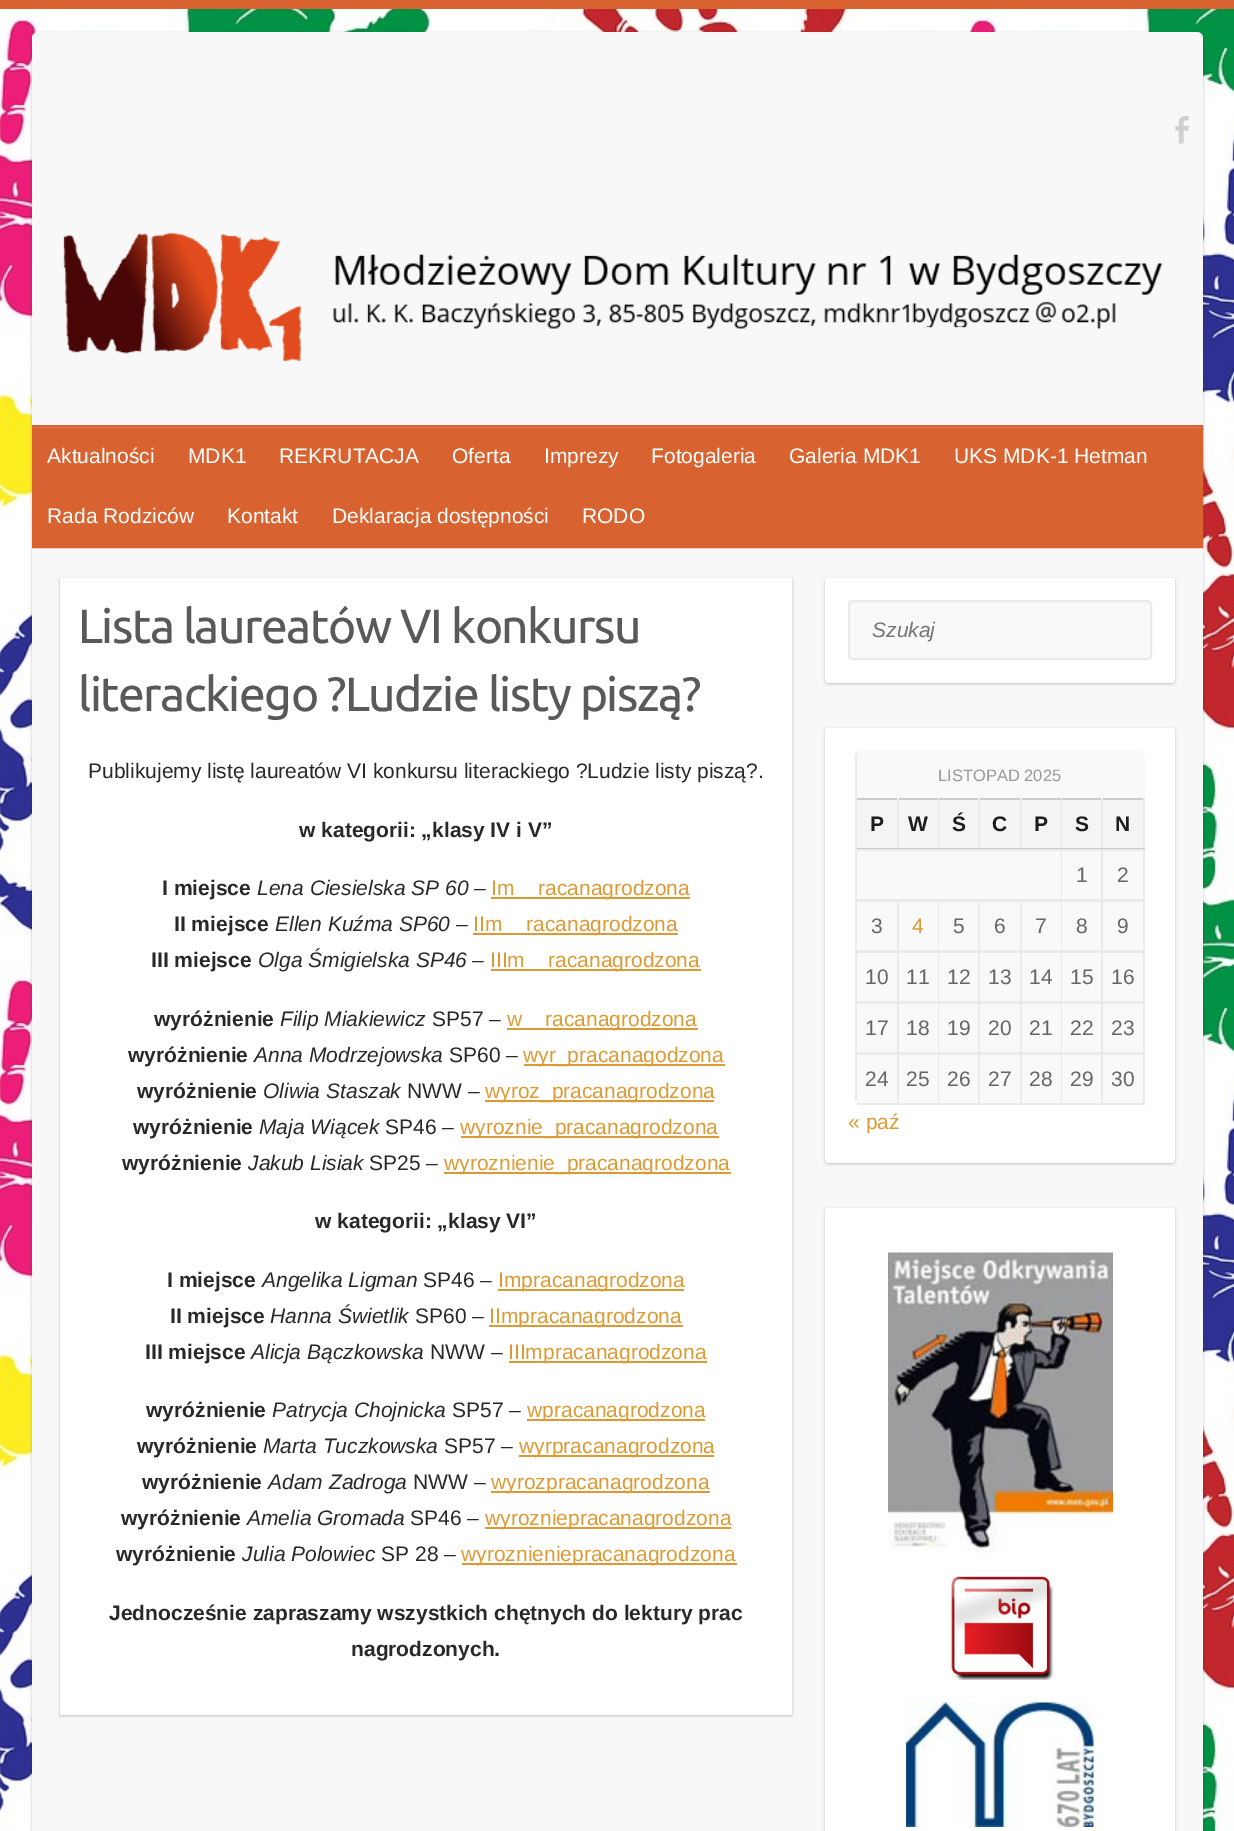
%!PS-Adobe-3.0
%%BoundingBox: 0 0 1234 1831
%%LanguageLevel: 3
%%Pages: 1
%%EndComments
%%BeginProlog
/setalpha { dup .setfillconstantalpha .setstrokeconstantalpha } def
/rrect { 5 dict begin { /r /h /w /y /x } { exch def } forall
  x r add y moveto x w add y 2 copy h add r arct x w add y h add x 1 index r arct
  x y h add x y r arct x y 2 copy exch w add exch r arct closepath end } def
/softshadow { 12 dict begin { /a /b /q /h /w /y /x } { exch def } forall gsave /was 0 def
  9 -2 -9 { dup b mul 4 div /e exch def 1 sub .425 mul 2.718 exch exp 1 add a .99 .min exch div /now exch def
    1 1 now sub 1 was sub div sub setalpha /was now def
    w h .min e 2 mul add 0 gt { x e sub y e sub w e 2 mul add h e 2 mul add
      q e add b .6 mul add w h .min 2 div e add .min 0 .max rrect fill } if } for grestore end } def
/drawimage { 5 dict begin { /h /w /y /x /name } { exch def } forall
  gsave x y translate w h scale
  w h 8 [w 0 0 h 0 0] name (r) file false 3 colorimage grestore end } def
%%EndProlog
%%BeginSetup
<< /PageSize [1234 1831] /PageUsesTransparency true >> setpagedevice
%%EndSetup
%%Page: 1 1
0 .pushpdf14devicefilter
0 1831 translate 1 -1 scale
4 setmiterlimit
1 setgray
0 0 1234 1831 rectfill
(images/1.raw) 0 9 1234 1822 drawimage
0.847 0.388 0.192 setrgbcolor
0 0 1234 9 rectfill
0 setgray
32 33 1171 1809 6 1.5 0.2 softshadow
0.973 setgray
32 32 1171 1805 6 rrect fill
(images/2.raw) 1175 116 14 28 drawimage
(images/3.raw) 63 232 1099 129 drawimage
0.847 0.388 0.192 setrgbcolor
34 428 1167 118 rectfill
0.878 0.51 0.353 setrgbcolor
33 427 1169 1 rectfill
0.847 0.388 0.192 setrgbcolor
2 setlinewidth
33 426 1169 121 rectstroke
0 setgray
60 579 732 1137 0 1.5 0.2 softshadow
1 setgray
60 578 732 1137 rectfill
0.867 0.6 0.2 setrgbcolor
491 897 199 2 rectfill
473 933 205 2 rectfill
491 969 210 2 rectfill
507 1028 191 2 rectfill
524 1064 201 2 rectfill
485 1100 229 2 rectfill
461 1136 258 2 rectfill
444 1172 287 2 rectfill
498 1289 186 2 rectfill
489 1325 194 2 rectfill
509 1361 198 2 rectfill
527 1419 178 2 rectfill
519 1455 195 2 rectfill
491 1491 219 2 rectfill
485 1527 246 2 rectfill
462 1563 275 2 rectfill
0 setgray
825 579 350 105 3 1.5 0.2 softshadow
1 setgray
825 578 350 105 3 rrect fill
0.976 setgray
849 601 302 58 4 rrect gsave fill grestore
0.918 setgray
stroke
0 setgray
825 729 350 435 3 1.5 0.2 softshadow
1 setgray
825 728 350 435 3 rrect fill
0.976 setgray
855 750 290 354 6 rrect fill
0.918 setgray
855 753 2 348 rectfill
0.957 setgray
857 800 40 48 rectfill
0.8 setgray
857 798 288 2 rectfill
0.918 setgray
897 798 2 51 rectfill
0.8 setgray
857 848 42 1 rectfill
0.957 setgray
899 800 39 48 rectfill
0.918 setgray
938 798 1 51 rectfill
0.8 setgray
899 848 40 1 rectfill
0.957 setgray
939 800 39 48 rectfill
0.918 setgray
978 798 2 51 rectfill
0.8 setgray
939 848 41 1 rectfill
0.957 setgray
980 800 40 48 rectfill
0.918 setgray
1020 798 2 51 rectfill
0.8 setgray
980 848 42 1 rectfill
0.957 setgray
1022 800 39 48 rectfill
0.918 setgray
1061 798 1 51 rectfill
0.8 setgray
1022 848 40 1 rectfill
0.957 setgray
1062 800 39 48 rectfill
0.918 setgray
1101 798 2 51 rectfill
0.8 setgray
1062 848 41 1 rectfill
0.957 setgray
1103 800 40 48 rectfill
0.918 setgray
1143 798 2 51 rectfill
0.8 setgray
1103 848 42 1 rectfill
0.918 setgray
857 849 288 2 rectfill
1061 849 1 51 rectfill
857 899 205 1 rectfill
1101 849 2 51 rectfill
1062 899 41 1 rectfill
1143 849 2 51 rectfill
1103 899 42 1 rectfill
857 900 288 2 rectfill
897 900 2 51 rectfill
857 950 42 3 rectfill
938 900 1 51 rectfill
899 950 40 3 rectfill
978 900 2 51 rectfill
939 950 41 3 rectfill
1020 900 2 51 rectfill
980 950 42 3 rectfill
1061 900 1 51 rectfill
1022 950 40 3 rectfill
1101 900 2 51 rectfill
1062 950 41 3 rectfill
1143 900 2 51 rectfill
1103 950 42 3 rectfill
897 951 2 51 rectfill
857 1001 42 3 rectfill
938 951 1 51 rectfill
899 1001 40 3 rectfill
978 951 2 51 rectfill
939 1001 41 3 rectfill
1020 951 2 51 rectfill
980 1001 42 3 rectfill
1061 951 1 51 rectfill
1022 1001 40 3 rectfill
1101 951 2 51 rectfill
1062 1001 41 3 rectfill
1143 951 2 51 rectfill
1103 1001 42 3 rectfill
897 1002 2 51 rectfill
857 1052 42 3 rectfill
938 1002 1 51 rectfill
899 1052 40 3 rectfill
978 1002 2 51 rectfill
939 1052 41 3 rectfill
1020 1002 2 51 rectfill
980 1052 42 3 rectfill
1061 1002 1 51 rectfill
1022 1052 40 3 rectfill
1101 1002 2 51 rectfill
1062 1052 41 3 rectfill
1143 1002 2 51 rectfill
1103 1052 42 3 rectfill
897 1053 2 51 rectfill
857 1103 42 2 rectfill
938 1053 1 51 rectfill
899 1103 40 2 rectfill
978 1053 2 51 rectfill
939 1103 41 2 rectfill
1020 1053 2 51 rectfill
980 1103 42 2 rectfill
1061 1053 1 51 rectfill
1022 1103 40 2 rectfill
1101 1053 2 51 rectfill
1062 1103 41 2 rectfill
1143 1053 2 51 rectfill
1103 1103 42 2 rectfill
0 setgray
825 1209 350 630 3 1.5 0.2 softshadow
1 setgray
825 1208 350 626 3 rrect fill
(images/4.raw) 888 1252 225 301 drawimage
(images/5.raw) 951 1576 102 104 drawimage
(images/6.raw) 906 1702 188 125 drawimage
/LiberationSans-Regular [21 0 0 -21 0 0] selectfont
47 463 moveto (Aktualności) show
188 463 moveto (MDK1) show
279 463 moveto (REKRUTACJA) show
452 463 moveto (Oferta) show
544 463 moveto (Imprezy) show
651 463 moveto (Fotogaleria) show
789 463 moveto (Galeria MDK1) show
954 463 moveto (UKS MDK-1 Hetman) show
47 523 moveto (Rada Rodziców) show
227 523 moveto (Kontakt) show
332 523 moveto (Deklaracja dostępności) show
582 523 moveto (RODO) show
/Ubuntu-Regular [48 0 0 -48 0 0] selectfont
0.349 setgray
78 643 moveto -1.5 0 (Lista laureatów VI konkursu) ashow
78 711 moveto -1.5 0 (literackiego ?Ludzie listy piszą?) ashow
/LiberationSans-Regular [21 0 0 -21 0 0] selectfont
0.157 setgray
88 778 moveto (Publikujemy listę laureatów VI konkursu literackiego ?Ludzie listy piszą?.) show
/LiberationSans-Bold [21 0 0 -21 0 0] selectfont
299 837 moveto (w kategorii: „klasy IV i V”) show
162 895 moveto (I miejsce) show
/LiberationSans-Italic [21 0 0 -21 0 0] selectfont
257 895 moveto (Lena Ciesielska SP 60) show
/LiberationSans-Regular [21 0 0 -21 0 0] selectfont
474 895 moveto (–) show
0.867 0.6 0.2 setrgbcolor
491 895 moveto (Im) show
538 895 moveto (racanagrodzona) show
/LiberationSans-Bold [21 0 0 -21 0 0] selectfont
0.157 setgray
174 931 moveto (II miejsce) show
/LiberationSans-Italic [21 0 0 -21 0 0] selectfont
275 931 moveto (Ellen Kuźma SP60) show
/LiberationSans-Regular [21 0 0 -21 0 0] selectfont
456 931 moveto (–) show
0.867 0.6 0.2 setrgbcolor
473 931 moveto (IIm) show
526 931 moveto (racanagrodzona) show
/LiberationSans-Bold [21 0 0 -21 0 0] selectfont
0.157 setgray
151 967 moveto (III miejsce) show
/LiberationSans-Italic [21 0 0 -21 0 0] selectfont
258 967 moveto (Olga Śmigielska SP46) show
/LiberationSans-Regular [21 0 0 -21 0 0] selectfont
472 967 moveto (–) show
0.867 0.6 0.2 setrgbcolor
490 967 moveto (IIIm) show
548 967 moveto (racanagrodzona) show
/LiberationSans-Bold [21 0 0 -21 0 0] selectfont
0.157 setgray
154 1026 moveto (wyróżnienie) show
/LiberationSans-Italic [21 0 0 -21 0 0] selectfont
280 1026 moveto (Filip Miakiewicz) show
/LiberationSans-Regular [21 0 0 -21 0 0] selectfont
432 1026 moveto (SP57 –) show
0.867 0.6 0.2 setrgbcolor
507 1026 moveto (w) show
545 1026 moveto (racanagrodzona) show
/LiberationSans-Bold [21 0 0 -21 0 0] selectfont
0.157 setgray
128 1062 moveto (wyróżnienie) show
/LiberationSans-Italic [21 0 0 -21 0 0] selectfont
254 1062 moveto (Anna Modrzejowska) show
/LiberationSans-Regular [21 0 0 -21 0 0] selectfont
449 1062 moveto (SP60 –) show
0.867 0.6 0.2 setrgbcolor
523 1062 moveto (wyr_pracanagodzona) show
/LiberationSans-Bold [21 0 0 -21 0 0] selectfont
0.157 setgray
137 1098 moveto (wyróżnienie) show
/LiberationSans-Italic [21 0 0 -21 0 0] selectfont
263 1098 moveto (Oliwia Staszak) show
/LiberationSans-Regular [21 0 0 -21 0 0] selectfont
407 1098 moveto (NWW –) show
0.867 0.6 0.2 setrgbcolor
485 1098 moveto (wyroz_pracanagrodzona) show
/LiberationSans-Bold [21 0 0 -21 0 0] selectfont
0.157 setgray
133 1134 moveto (wyróżnienie) show
/LiberationSans-Italic [21 0 0 -21 0 0] selectfont
259 1134 moveto (Maja Wiącek) show
/LiberationSans-Regular [21 0 0 -21 0 0] selectfont
385 1134 moveto (SP46 –) show
0.867 0.6 0.2 setrgbcolor
460 1134 moveto (wyroznie_pracanagrodzona) show
/LiberationSans-Bold [21 0 0 -21 0 0] selectfont
0.157 setgray
122 1170 moveto (wyróżnienie) show
/LiberationSans-Italic [21 0 0 -21 0 0] selectfont
248 1170 moveto (Jakub Lisiak) show
/LiberationSans-Regular [21 0 0 -21 0 0] selectfont
369 1170 moveto (SP25 –) show
0.867 0.6 0.2 setrgbcolor
444 1170 moveto (wyroznienie_pracanagrodzona) show
/LiberationSans-Bold [21 0 0 -21 0 0] selectfont
0.157 setgray
315 1228 moveto (w kategorii: „klasy VI”) show
167 1287 moveto (I miejsce) show
/LiberationSans-Italic [21 0 0 -21 0 0] selectfont
262 1287 moveto (Angelika Ligman) show
/LiberationSans-Regular [21 0 0 -21 0 0] selectfont
423 1287 moveto (SP46 –) show
0.867 0.6 0.2 setrgbcolor
498 1287 moveto (Impracanagrodzona) show
/LiberationSans-Bold [21 0 0 -21 0 0] selectfont
0.157 setgray
170 1323 moveto (II miejsce) show
/LiberationSans-Italic [21 0 0 -21 0 0] selectfont
270 1323 moveto (Hanna Świetlik) show
/LiberationSans-Regular [21 0 0 -21 0 0] selectfont
415 1323 moveto (SP60 –) show
0.867 0.6 0.2 setrgbcolor
489 1323 moveto (IImpracanagrodzona) show
/LiberationSans-Bold [21 0 0 -21 0 0] selectfont
0.157 setgray
145 1359 moveto (III miejsce) show
/LiberationSans-Italic [21 0 0 -21 0 0] selectfont
251 1359 moveto (Alicja Bączkowska) show
/LiberationSans-Regular [21 0 0 -21 0 0] selectfont
430 1359 moveto (NWW –) show
0.867 0.6 0.2 setrgbcolor
508 1359 moveto (IIImpracanagrodzona) show
/LiberationSans-Bold [21 0 0 -21 0 0] selectfont
0.157 setgray
146 1417 moveto (wyróżnienie) show
/LiberationSans-Italic [21 0 0 -21 0 0] selectfont
272 1417 moveto (Patrycja Chojnicka) show
/LiberationSans-Regular [21 0 0 -21 0 0] selectfont
452 1417 moveto (SP57 –) show
0.867 0.6 0.2 setrgbcolor
527 1417 moveto (wpracanagrodzona) show
/LiberationSans-Bold [21 0 0 -21 0 0] selectfont
0.157 setgray
137 1453 moveto (wyróżnienie) show
/LiberationSans-Italic [21 0 0 -21 0 0] selectfont
263 1453 moveto (Marta Tuczkowska) show
/LiberationSans-Regular [21 0 0 -21 0 0] selectfont
444 1453 moveto (SP57 –) show
0.867 0.6 0.2 setrgbcolor
519 1453 moveto (wyrpracanagrodzona) show
/LiberationSans-Bold [21 0 0 -21 0 0] selectfont
0.157 setgray
142 1489 moveto (wyróżnienie) show
/LiberationSans-Italic [21 0 0 -21 0 0] selectfont
268 1489 moveto (Adam Zadroga) show
/LiberationSans-Regular [21 0 0 -21 0 0] selectfont
413 1489 moveto (NWW –) show
0.867 0.6 0.2 setrgbcolor
491 1489 moveto (wyrozpracanagrodzona) show
/LiberationSans-Bold [21 0 0 -21 0 0] selectfont
0.157 setgray
121 1525 moveto (wyróżnienie) show
/LiberationSans-Italic [21 0 0 -21 0 0] selectfont
247 1525 moveto (Amelia Gromada) show
/LiberationSans-Regular [21 0 0 -21 0 0] selectfont
410 1525 moveto (SP46 –) show
0.867 0.6 0.2 setrgbcolor
485 1525 moveto (wyrozniepracanagrodzona) show
/LiberationSans-Bold [21 0 0 -21 0 0] selectfont
0.157 setgray
116 1561 moveto (wyróżnienie) show
/LiberationSans-Italic [21 0 0 -21 0 0] selectfont
242 1561 moveto (Julia Polowiec) show
/LiberationSans-Regular [21 0 0 -21 0 0] selectfont
381 1561 moveto (SP 28 –) show
0.867 0.6 0.2 setrgbcolor
461 1561 moveto (wyroznieniepracanagrodzona) show
/LiberationSans-Bold [21 0 0 -21 0 0] selectfont
0.157 setgray
109 1620 moveto (Jednocześnie zapraszamy wszystkich chętnych do lektury prac) show
351 1656 moveto (nagrodzonych.) show
/LiberationSans-Italic [21 0 0 -21 0 0] selectfont
0.459 setgray
872 637 moveto (Szukaj) show
/LiberationSans-Regular [16.5 0 0 -16.5 0 0] selectfont
0.6 setgray
938 781 moveto (LISTOPAD 2025) show
/LiberationSans-Bold [21 0 0 -21 0 0] selectfont
0.114 setgray
870 831 moveto (P) show
908 831 moveto (W) show
952 831 moveto (Ś) show
992 831 moveto (C) show
1034 831 moveto (P) show
1075 831 moveto (S) show
1115 831 moveto (N) show
/LiberationSans-Regular [21 0 0 -21 0 0] selectfont
0.4 setgray
1076 882 moveto (1) show
1117 882 moveto (2) show
871 933 moveto (3) show
0.867 0.6 0.2 setrgbcolor
912 933 moveto (4) show
0.4 setgray
953 933 moveto (5) show
994 933 moveto (6) show
1035 933 moveto (7) show
1076 933 moveto (8) show
1117 933 moveto (9) show
865 984 moveto (10) show
906 984 moveto (11) show
947 984 moveto (12) show
988 984 moveto (13) show
1029 984 moveto (14) show
1070 984 moveto (15) show
1111 984 moveto (16) show
865 1035 moveto (17) show
906 1035 moveto (18) show
947 1035 moveto (19) show
988 1035 moveto (20) show
1029 1035 moveto (21) show
1070 1035 moveto (22) show
1111 1035 moveto (23) show
865 1086 moveto (24) show
906 1086 moveto (25) show
947 1086 moveto (26) show
988 1086 moveto (27) show
1029 1086 moveto (28) show
1070 1086 moveto (29) show
1111 1086 moveto (30) show
0.867 0.6 0.2 setrgbcolor
848 1129 moveto (« paź) show
.poppdf14devicefilter showpage
%%EOF
